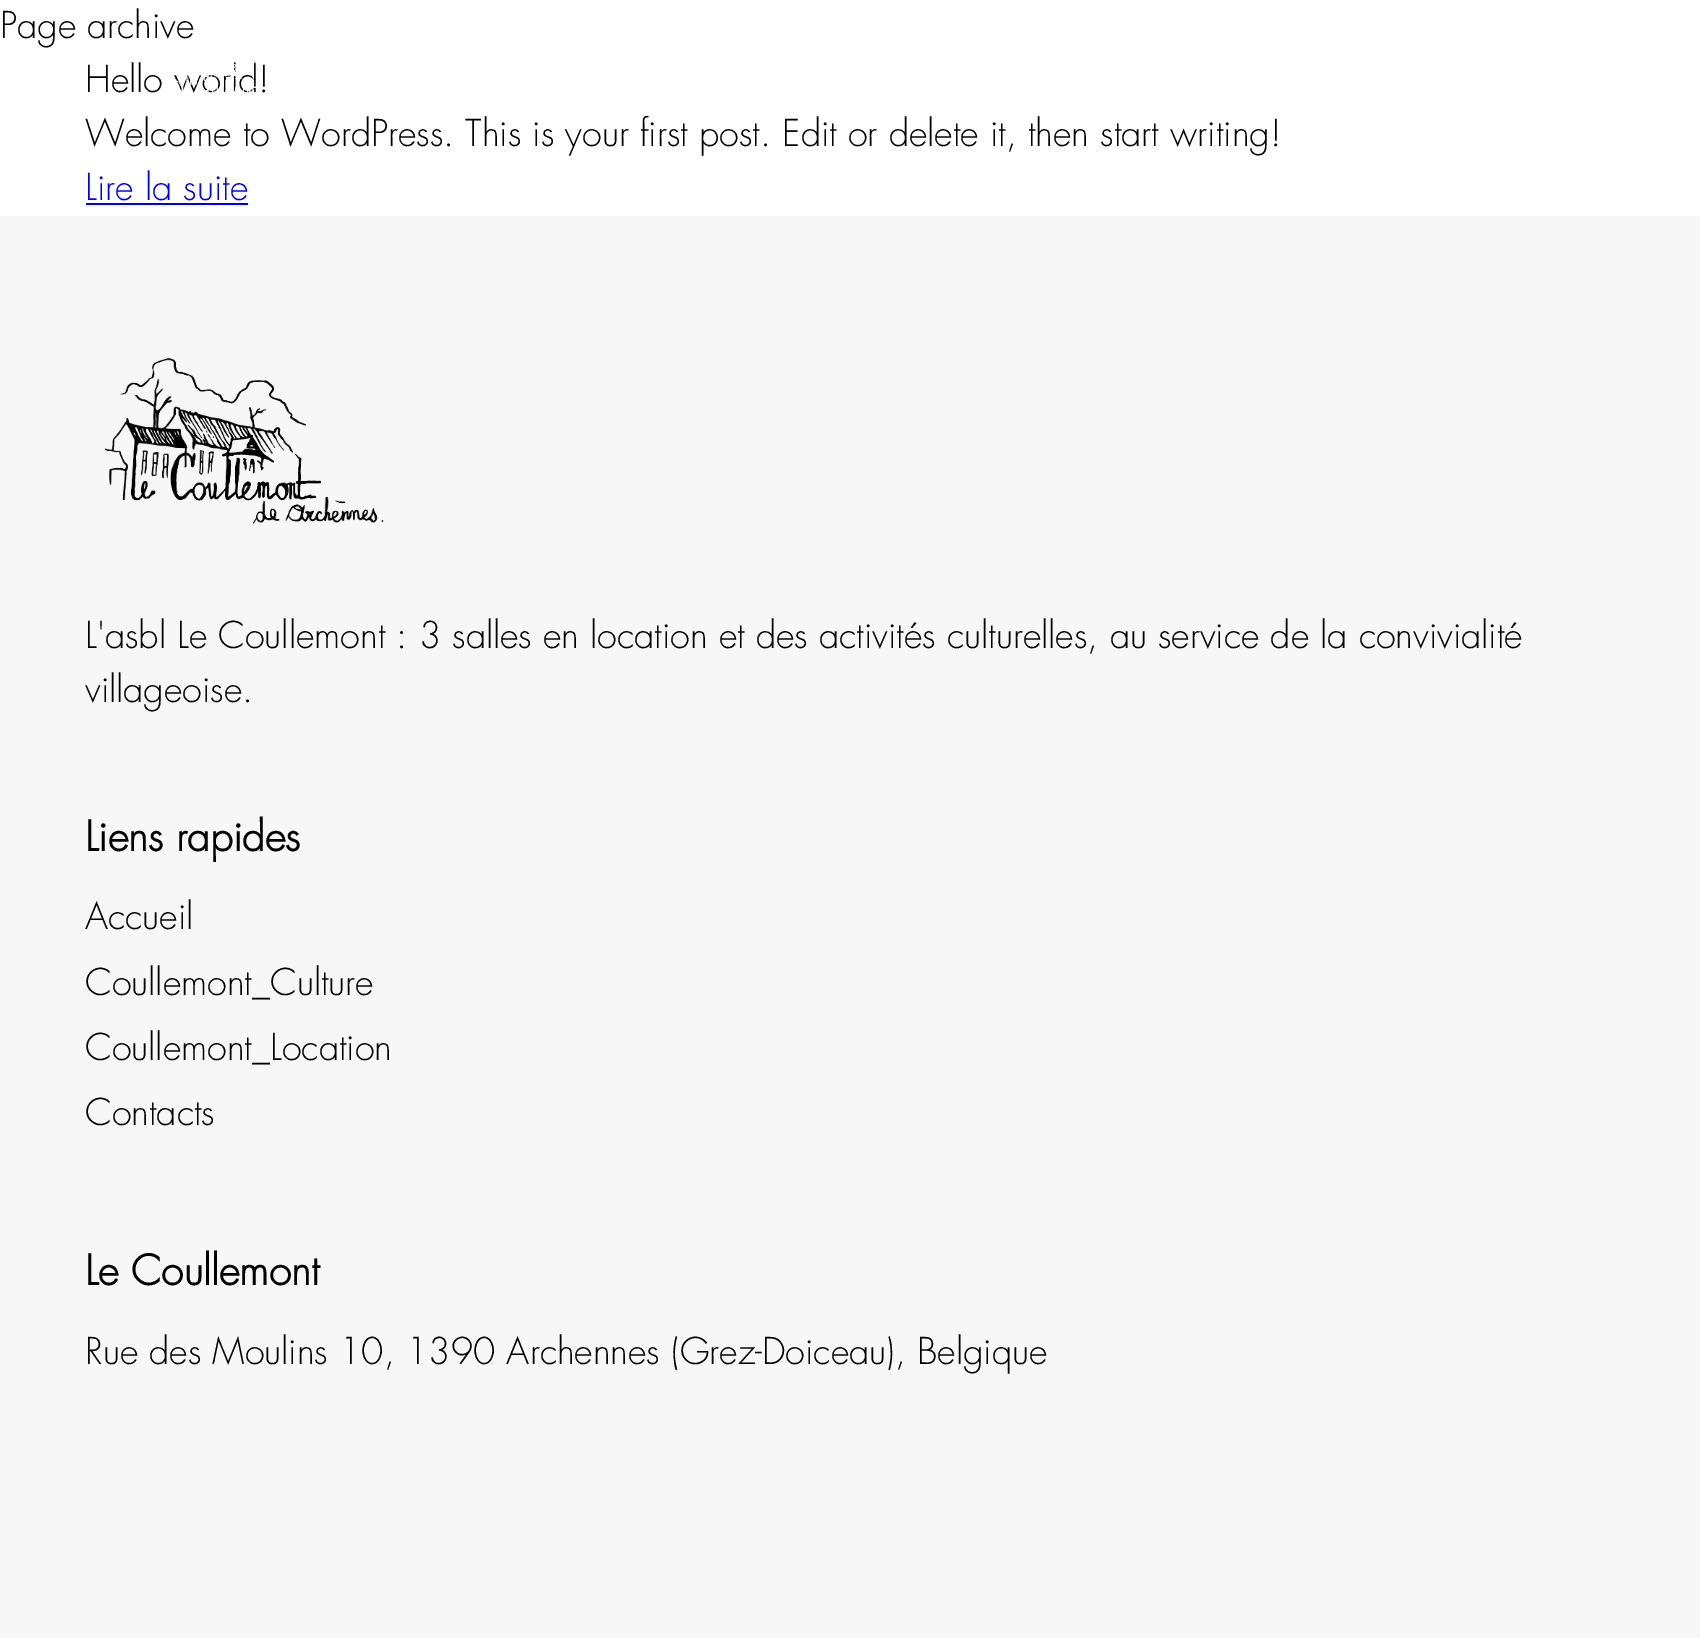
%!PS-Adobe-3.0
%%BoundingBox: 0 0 1700 1638
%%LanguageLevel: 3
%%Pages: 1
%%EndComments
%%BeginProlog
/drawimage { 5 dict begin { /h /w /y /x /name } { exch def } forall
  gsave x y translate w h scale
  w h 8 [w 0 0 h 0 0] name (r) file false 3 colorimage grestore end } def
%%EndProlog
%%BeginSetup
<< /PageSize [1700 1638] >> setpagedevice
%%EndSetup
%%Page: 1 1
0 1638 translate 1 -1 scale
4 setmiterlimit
1 setgray
0 0 1700 1638 rectfill
0 0 0.933 setrgbcolor
86 203 162 2 rectfill
0.973 0.969 0.969 setrgbcolor
0 216 1700 1422 rectfill
(images/2.raw) 104 358 280 166 drawimage
/Futura-Light [36 0 0 -36 0 0] selectfont
0 setgray
0 38 moveto (Page archive) show
85 92 moveto (Hello world!) show
85 146 moveto (Welcome to WordPress. This is your first post. Edit or delete it, then start writing!) show
0 0 0.933 setrgbcolor
85 200 moveto (Lire la suite) show
(images/1.raw) 176 62 80 31 drawimage
0 setgray
85 648 moveto (L'asbl Le Coullemont : 3 salles en location et des activités culturelles, au service de la convivialité) show
85 702 moveto (villageoise.) show
/Futura-Bold [40.5 0 0 -40.5 0 0] selectfont
85 851 moveto (Liens rapides) show
/Futura-Light [36 0 0 -36 0 0] selectfont
85 929 moveto (Accueil) show
85 995 moveto (Coullemont_Culture) show
85 1060 moveto (Coullemont_Location) show
85 1125 moveto (Contacts) show
/Futura-Bold [40.5 0 0 -40.5 0 0] selectfont
85 1285 moveto (Le Coullemont) show
/Futura-Light [36 0 0 -36 0 0] selectfont
85 1364 moveto (Rue des Moulins 10, 1390 Archennes \(Grez-Doiceau\), Belgique) show
showpage
%%EOF
